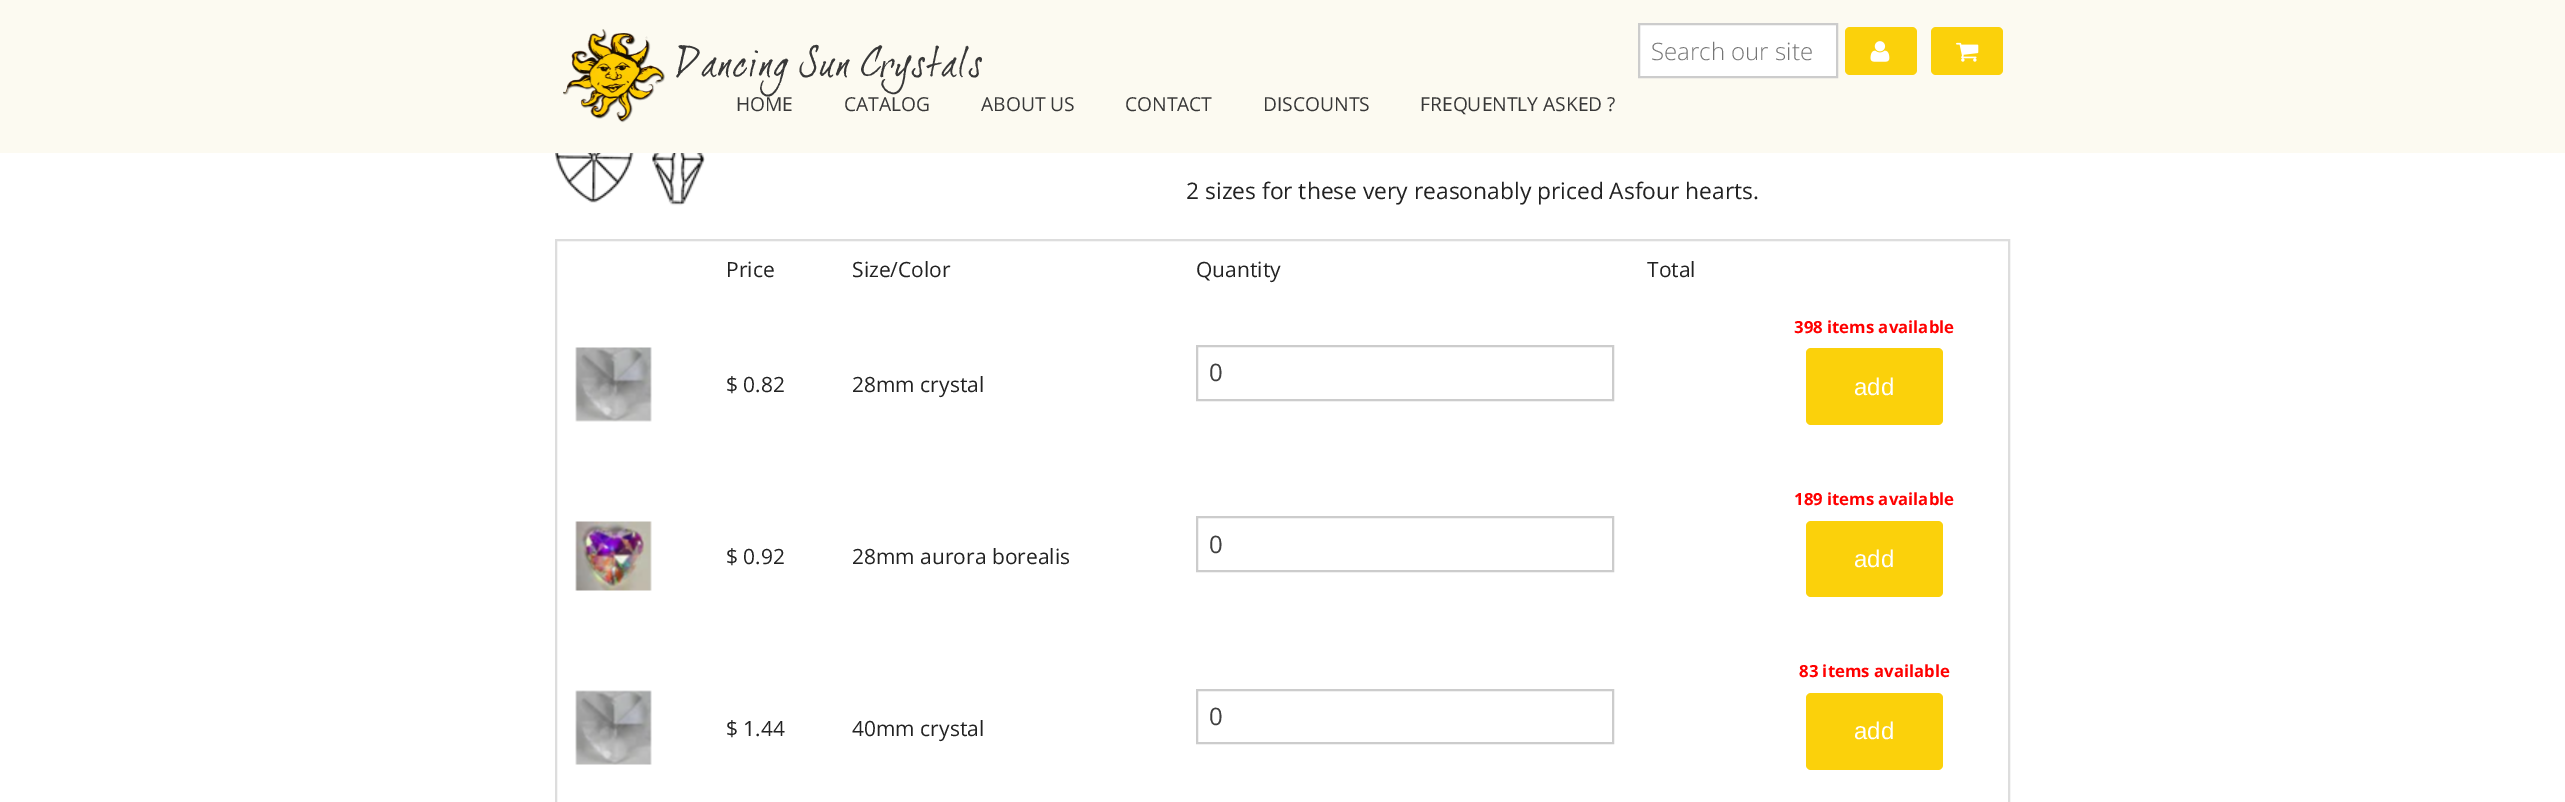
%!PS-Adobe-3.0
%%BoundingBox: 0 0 2565 802
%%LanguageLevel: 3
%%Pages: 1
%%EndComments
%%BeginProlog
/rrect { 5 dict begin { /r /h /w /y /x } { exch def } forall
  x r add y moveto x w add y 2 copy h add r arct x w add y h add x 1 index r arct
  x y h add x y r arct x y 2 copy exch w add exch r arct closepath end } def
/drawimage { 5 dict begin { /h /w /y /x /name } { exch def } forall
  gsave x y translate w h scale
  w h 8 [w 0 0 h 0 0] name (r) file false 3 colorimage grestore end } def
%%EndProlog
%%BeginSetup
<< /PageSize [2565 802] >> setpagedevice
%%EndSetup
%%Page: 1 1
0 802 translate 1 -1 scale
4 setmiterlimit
1 setgray
0 0 2565 802 rectfill
0.988 0.98 0.945 setrgbcolor
0 0 2565 153 rectfill
1 setgray
newpath 1639 24 moveto 1837 24 lineto 1837 77 lineto 1639 77 lineto closepath gsave fill grestore
0.8 setgray
2 setlinewidth
stroke
0.984 0.82 0.043 setrgbcolor
1845 27 72 48 5 rrect fill
(images/1.raw) 1870 41 20 21 drawimage
1931 27 72 48 5 rrect fill
(images/2.raw) 1956 42 23 20 drawimage
(images/3.raw) 563 29 102 94 drawimage
(images/4.raw) 555 153 150 53 drawimage
0.867 setgray
556 240 1453 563 rectstroke
(images/5.raw) 575 347 77 75 drawimage
0.8 setgray
1197 346 416 54 rectstroke
0.984 0.82 0.043 setrgbcolor
1806 348 137 77 5 rrect fill
(images/6.raw) 575 521 77 70 drawimage
0.8 setgray
1197 517 416 54 rectstroke
0.984 0.82 0.043 setrgbcolor
1806 521 137 76 5 rrect fill
(images/7.raw) 575 690 77 75 drawimage
0.8 setgray
1197 690 416 53 rectstroke
0.984 0.82 0.043 setrgbcolor
1806 693 137 77 5 rrect fill
/OpenSans-Light [24 0 0 -24 0 0] selectfont
0.459 setgray
1651 60 moveto (Search our site) show
/OpenSans-Regular [19.25 0 0 -19.25 0 0] selectfont
0.22 setgray
736 111 moveto (HOME) show
844 111 moveto (CATALOG) show
981 111 moveto (ABOUT US) show
1125 111 moveto (CONTACT) show
1263 111 moveto (DISCOUNTS) show
1420 111 moveto (FREQUENTLY ASKED ?) show
/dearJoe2-Regular [40.5 0 0 -40.5 0 0] selectfont
677 76 moveto (Dancing Sun Crystals) show
/OpenSans-Regular [22.8 0 0 -22.8 0 0] selectfont
0.133 setgray
1186 199 moveto (2 sizes for these very reasonably priced Asfour hearts.) show
/OpenSans-Regular [21 0 0 -21 0 0] selectfont
726 277 moveto (Price) show
852 277 moveto (Size/Color) show
1196 277 moveto (Quantity) show
1647 277 moveto (Total) show
/OpenSans-Regular [24 0 0 -24 0 0] selectfont
0.251 setgray
1209 381 moveto (0) show
/OpenSans-Bold [16.75 0 0 -16.75 0 0] selectfont
1 0 0 setrgbcolor
1794 333 moveto (398 items available) show
/LiberationSans-Regular [24 0 0 -24 0 0] selectfont
1 setgray
1854 395 moveto (add) show
/OpenSans-Regular [21 0 0 -21 0 0] selectfont
0.133 setgray
726 392 moveto ($ 0.82) show
852 392 moveto (28mm crystal) show
/OpenSans-Regular [24 0 0 -24 0 0] selectfont
0.251 setgray
1209 553 moveto (0) show
/OpenSans-Bold [16.75 0 0 -16.75 0 0] selectfont
1 0 0 setrgbcolor
1794 505 moveto (189 items available) show
/LiberationSans-Regular [24 0 0 -24 0 0] selectfont
1 setgray
1854 567 moveto (add) show
/OpenSans-Regular [21 0 0 -21 0 0] selectfont
0.133 setgray
726 564 moveto ($ 0.92) show
852 564 moveto (28mm aurora borealis) show
/OpenSans-Regular [24 0 0 -24 0 0] selectfont
0.251 setgray
1209 725 moveto (0) show
/OpenSans-Bold [16.75 0 0 -16.75 0 0] selectfont
1 0 0 setrgbcolor
1799 677 moveto (83 items available) show
/LiberationSans-Regular [24 0 0 -24 0 0] selectfont
1 setgray
1854 739 moveto (add) show
/OpenSans-Regular [21 0 0 -21 0 0] selectfont
0.133 setgray
726 736 moveto ($ 1.44) show
852 736 moveto (40mm crystal) show
showpage
%%EOF
